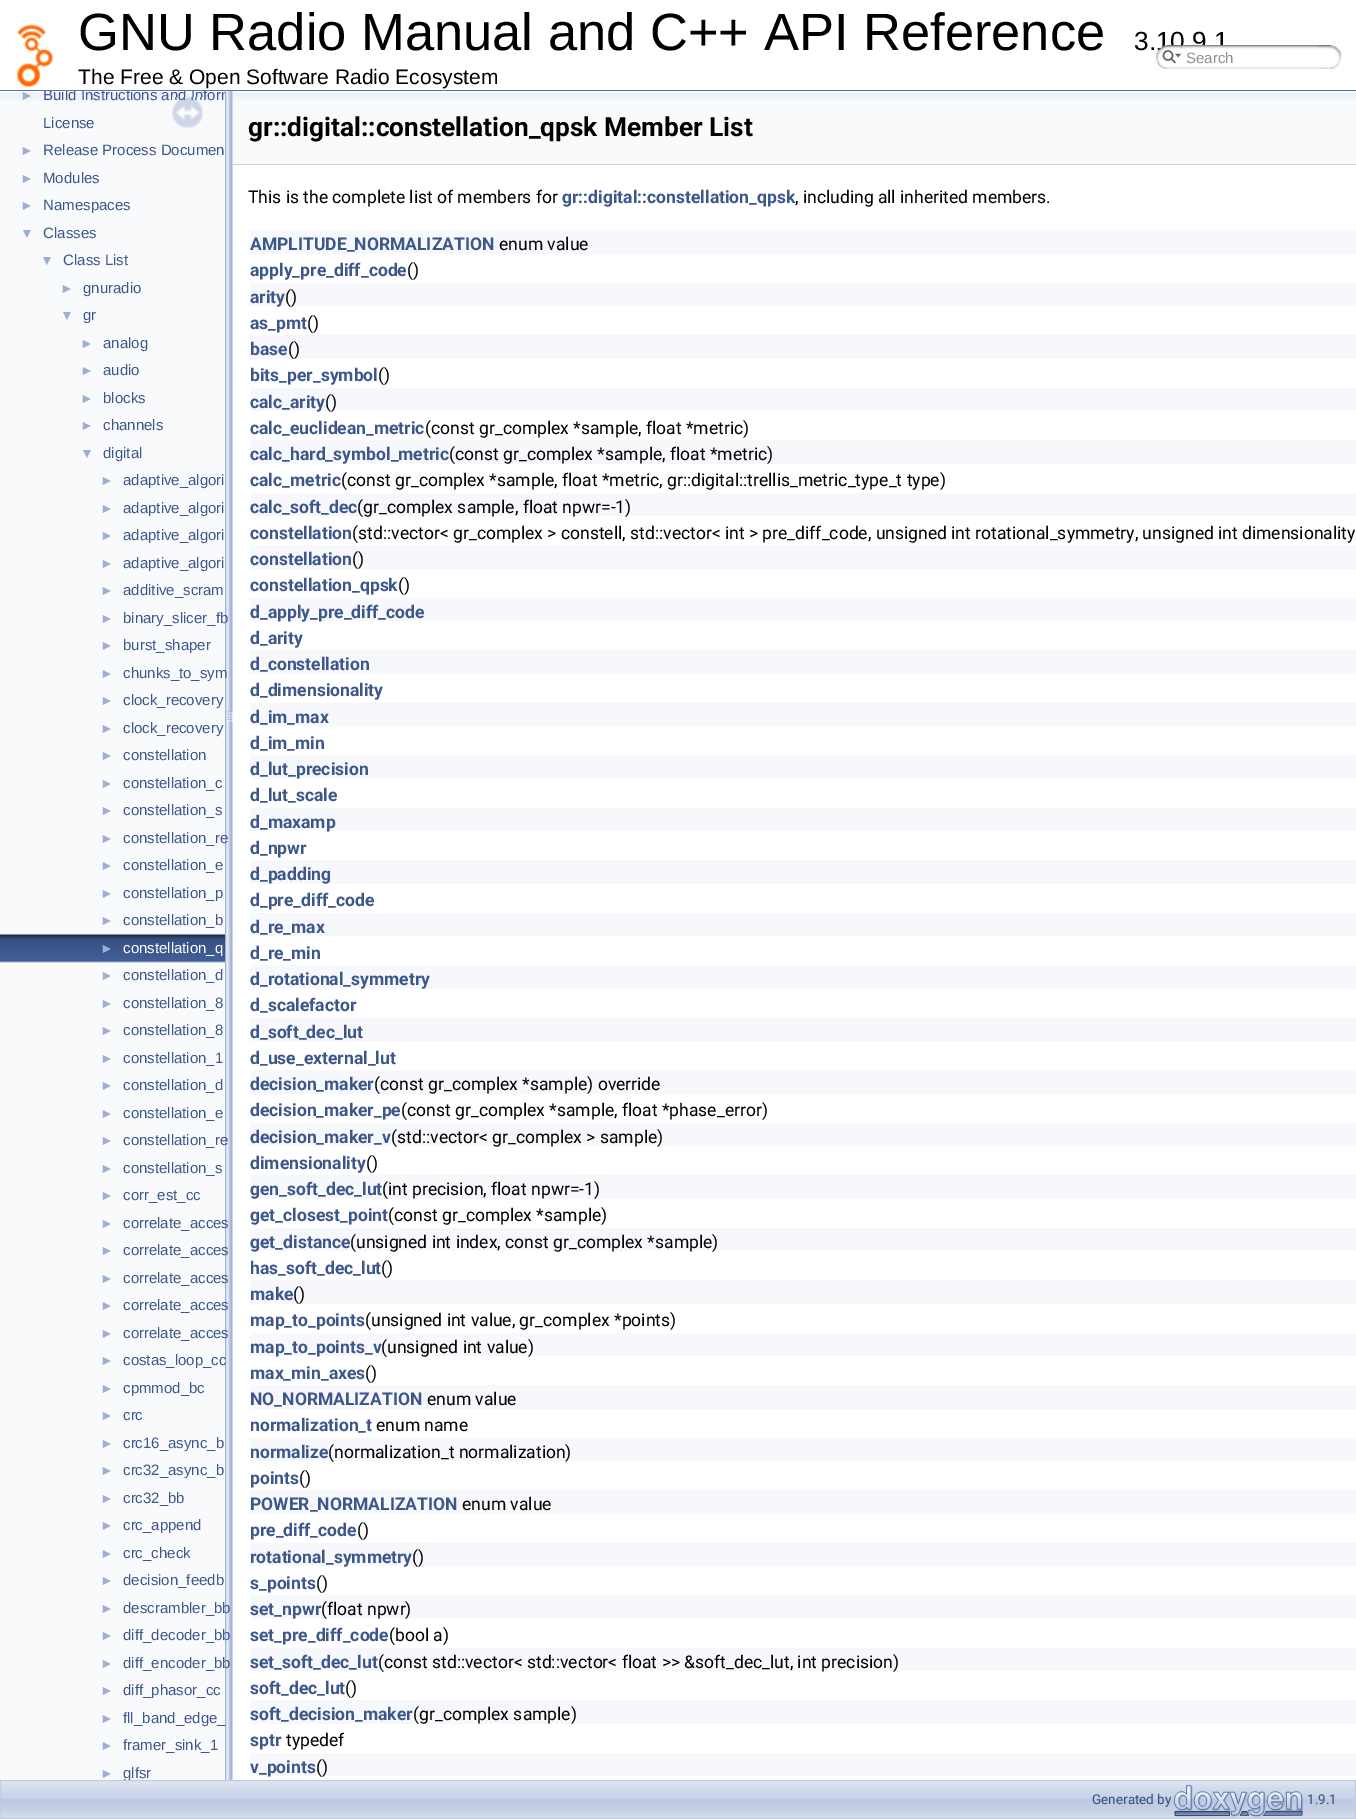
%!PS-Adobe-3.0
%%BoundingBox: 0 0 1356 1819
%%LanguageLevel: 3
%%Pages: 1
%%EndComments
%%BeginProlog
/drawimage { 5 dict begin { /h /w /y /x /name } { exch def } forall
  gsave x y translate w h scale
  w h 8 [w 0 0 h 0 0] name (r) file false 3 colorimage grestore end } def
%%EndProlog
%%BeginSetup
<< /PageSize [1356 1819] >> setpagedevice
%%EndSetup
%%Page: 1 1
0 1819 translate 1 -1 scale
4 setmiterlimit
1 setgray
0 0 1356 1819 rectfill
0.325 0.451 0.706 setrgbcolor
0 90 1356 1 rectfill
(images/1.raw) 16 24 38 64 drawimage
0.976 0.98 0.988 setrgbcolor
0 91 225 1689 rectfill
(images/6.raw) 0 91 225 10 drawimage
(images/7.raw) 0 934 225 29 drawimage
233 91 1123 73 rectfill
(images/10.raw) 232 93 1124 8 drawimage
(images/9.raw) 225 91 8 1689 drawimage
0.769 0.812 0.898 setrgbcolor
233 164 1123 1 rectfill
0.969 0.973 0.984 setrgbcolor
250 230 1106 24 rectfill
250 283 1106 23 rectfill
250 335 1106 24 rectfill
250 388 1106 23 rectfill
250 440 1106 24 rectfill
250 493 1106 23 rectfill
250 545 1106 24 rectfill
250 598 1106 23 rectfill
250 650 1106 24 rectfill
250 703 1106 23 rectfill
250 755 1106 24 rectfill
250 808 1106 23 rectfill
250 860 1106 24 rectfill
250 913 1106 23 rectfill
250 965 1106 24 rectfill
250 1018 1106 23 rectfill
250 1070 1106 24 rectfill
250 1123 1106 23 rectfill
250 1175 1106 24 rectfill
250 1228 1106 23 rectfill
250 1280 1106 24 rectfill
250 1333 1106 23 rectfill
250 1385 1106 24 rectfill
250 1438 1106 23 rectfill
250 1490 1106 24 rectfill
250 1543 1106 23 rectfill
250 1595 1106 24 rectfill
250 1648 1106 23 rectfill
250 1700 1106 24 rectfill
250 1753 1106 23 rectfill
(images/11.raw) 1 1781 1354 38 drawimage
0.761 0.804 0.894 setrgbcolor
0.5 1780.5 1355 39 rectstroke
(images/12.raw) 1174 1785 130 33 drawimage
/LiberationSans-Regular [52.5 0 0 -52.5 0 0] selectfont
0 setgray
78 50 moveto (GNU Radio Manual and C++ API Reference) show
/LiberationSans-Regular [26.25 0 0 -26.25 0 0] selectfont
1134 50 moveto (3.10.9.1) show
/LiberationSans-Regular [21 0 0 -21 0 0] selectfont
78 84 moveto (The Free & Open Software Radio Ecosystem) show
(images/2.raw) 1156 45 26 24 drawimage
(images/3.raw) 1162 50 20 14 drawimage
(images/4.raw) 1181 45 147 24 drawimage
/LiberationSans-Regular [15 0 0 -15 0 0] selectfont
0.565 setgray
1186 63 moveto (Search) show
(images/5.raw) 1318 45 24 24 drawimage
/LiberationSans-Regular [14 0 0 -14 0 0] selectfont
0.612 0.686 0.831 setrgbcolor
20 100 moveto (►) show
gsave
0 91 225 1689 rectclip
/LiberationSans-Regular [15 0 0 -15 0 0] selectfont
0.239 0.341 0.549 setrgbcolor
43 100 moveto (Build Instructions and Inform) show
grestore
/LiberationSans-Regular [15 0 0 -15 0 0] selectfont
0.239 0.341 0.549 setrgbcolor
43 128 moveto (License) show
/LiberationSans-Regular [14 0 0 -14 0 0] selectfont
0.612 0.686 0.831 setrgbcolor
20 155 moveto (►) show
/LiberationSans-Regular [15 0 0 -15 0 0] selectfont
0.239 0.341 0.549 setrgbcolor
43 155 moveto (Release Process Documen) show
/LiberationSans-Regular [14 0 0 -14 0 0] selectfont
0.612 0.686 0.831 setrgbcolor
20 183 moveto (►) show
/LiberationSans-Regular [15 0 0 -15 0 0] selectfont
0.239 0.341 0.549 setrgbcolor
43 183 moveto (Modules) show
/LiberationSans-Regular [14 0 0 -14 0 0] selectfont
0.612 0.686 0.831 setrgbcolor
20 210 moveto (►) show
/LiberationSans-Regular [15 0 0 -15 0 0] selectfont
0.239 0.341 0.549 setrgbcolor
43 210 moveto (Namespaces) show
/LiberationSans-Regular [14 0 0 -14 0 0] selectfont
0.612 0.686 0.831 setrgbcolor
20 238 moveto (▼) show
/LiberationSans-Regular [15 0 0 -15 0 0] selectfont
0.239 0.341 0.549 setrgbcolor
43 238 moveto (Classes) show
/LiberationSans-Regular [14 0 0 -14 0 0] selectfont
0.612 0.686 0.831 setrgbcolor
40 265 moveto (▼) show
/LiberationSans-Regular [15 0 0 -15 0 0] selectfont
0.239 0.341 0.549 setrgbcolor
63 265 moveto (Class List) show
/LiberationSans-Regular [14 0 0 -14 0 0] selectfont
0.612 0.686 0.831 setrgbcolor
60 293 moveto (►) show
/LiberationSans-Regular [15 0 0 -15 0 0] selectfont
0.239 0.341 0.549 setrgbcolor
83 293 moveto (gnuradio) show
/LiberationSans-Regular [14 0 0 -14 0 0] selectfont
0.612 0.686 0.831 setrgbcolor
60 320 moveto (▼) show
/LiberationSans-Regular [15 0 0 -15 0 0] selectfont
0.239 0.341 0.549 setrgbcolor
83 320 moveto (gr) show
/LiberationSans-Regular [14 0 0 -14 0 0] selectfont
0.612 0.686 0.831 setrgbcolor
80 348 moveto (►) show
/LiberationSans-Regular [15 0 0 -15 0 0] selectfont
0.239 0.341 0.549 setrgbcolor
103 348 moveto (analog) show
/LiberationSans-Regular [14 0 0 -14 0 0] selectfont
0.612 0.686 0.831 setrgbcolor
80 375 moveto (►) show
/LiberationSans-Regular [15 0 0 -15 0 0] selectfont
0.239 0.341 0.549 setrgbcolor
103 375 moveto (audio) show
/LiberationSans-Regular [14 0 0 -14 0 0] selectfont
0.612 0.686 0.831 setrgbcolor
80 403 moveto (►) show
/LiberationSans-Regular [15 0 0 -15 0 0] selectfont
0.239 0.341 0.549 setrgbcolor
103 403 moveto (blocks) show
/LiberationSans-Regular [14 0 0 -14 0 0] selectfont
0.612 0.686 0.831 setrgbcolor
80 430 moveto (►) show
/LiberationSans-Regular [15 0 0 -15 0 0] selectfont
0.239 0.341 0.549 setrgbcolor
103 430 moveto (channels) show
/LiberationSans-Regular [14 0 0 -14 0 0] selectfont
0.612 0.686 0.831 setrgbcolor
80 458 moveto (▼) show
/LiberationSans-Regular [15 0 0 -15 0 0] selectfont
0.239 0.341 0.549 setrgbcolor
103 458 moveto (digital) show
/LiberationSans-Regular [14 0 0 -14 0 0] selectfont
0.612 0.686 0.831 setrgbcolor
100 485 moveto (►) show
/LiberationSans-Regular [15 0 0 -15 0 0] selectfont
0.239 0.341 0.549 setrgbcolor
123 485 moveto (adaptive_algori) show
/LiberationSans-Regular [14 0 0 -14 0 0] selectfont
0.612 0.686 0.831 setrgbcolor
100 513 moveto (►) show
/LiberationSans-Regular [15 0 0 -15 0 0] selectfont
0.239 0.341 0.549 setrgbcolor
123 513 moveto (adaptive_algori) show
/LiberationSans-Regular [14 0 0 -14 0 0] selectfont
0.612 0.686 0.831 setrgbcolor
100 540 moveto (►) show
/LiberationSans-Regular [15 0 0 -15 0 0] selectfont
0.239 0.341 0.549 setrgbcolor
123 540 moveto (adaptive_algori) show
/LiberationSans-Regular [14 0 0 -14 0 0] selectfont
0.612 0.686 0.831 setrgbcolor
100 568 moveto (►) show
/LiberationSans-Regular [15 0 0 -15 0 0] selectfont
0.239 0.341 0.549 setrgbcolor
123 568 moveto (adaptive_algori) show
/LiberationSans-Regular [14 0 0 -14 0 0] selectfont
0.612 0.686 0.831 setrgbcolor
100 595 moveto (►) show
/LiberationSans-Regular [15 0 0 -15 0 0] selectfont
0.239 0.341 0.549 setrgbcolor
123 595 moveto (additive_scram) show
/LiberationSans-Regular [14 0 0 -14 0 0] selectfont
0.612 0.686 0.831 setrgbcolor
100 623 moveto (►) show
/LiberationSans-Regular [15 0 0 -15 0 0] selectfont
0.239 0.341 0.549 setrgbcolor
123 623 moveto (binary_slicer_fb) show
/LiberationSans-Regular [14 0 0 -14 0 0] selectfont
0.612 0.686 0.831 setrgbcolor
100 650 moveto (►) show
/LiberationSans-Regular [15 0 0 -15 0 0] selectfont
0.239 0.341 0.549 setrgbcolor
123 650 moveto (burst_shaper) show
/LiberationSans-Regular [14 0 0 -14 0 0] selectfont
0.612 0.686 0.831 setrgbcolor
100 678 moveto (►) show
/LiberationSans-Regular [15 0 0 -15 0 0] selectfont
0.239 0.341 0.549 setrgbcolor
123 678 moveto (chunks_to_sym) show
/LiberationSans-Regular [14 0 0 -14 0 0] selectfont
0.612 0.686 0.831 setrgbcolor
100 705 moveto (►) show
/LiberationSans-Regular [15 0 0 -15 0 0] selectfont
0.239 0.341 0.549 setrgbcolor
123 705 moveto (clock_recovery) show
/LiberationSans-Regular [14 0 0 -14 0 0] selectfont
0.612 0.686 0.831 setrgbcolor
100 733 moveto (►) show
/LiberationSans-Regular [15 0 0 -15 0 0] selectfont
0.239 0.341 0.549 setrgbcolor
123 733 moveto (clock_recovery) show
/LiberationSans-Regular [14 0 0 -14 0 0] selectfont
0.612 0.686 0.831 setrgbcolor
100 760 moveto (►) show
/LiberationSans-Regular [15 0 0 -15 0 0] selectfont
0.239 0.341 0.549 setrgbcolor
123 760 moveto (constellation) show
/LiberationSans-Regular [14 0 0 -14 0 0] selectfont
0.612 0.686 0.831 setrgbcolor
100 788 moveto (►) show
/LiberationSans-Regular [15 0 0 -15 0 0] selectfont
0.239 0.341 0.549 setrgbcolor
123 788 moveto (constellation_c) show
/LiberationSans-Regular [14 0 0 -14 0 0] selectfont
0.612 0.686 0.831 setrgbcolor
100 815 moveto (►) show
/LiberationSans-Regular [15 0 0 -15 0 0] selectfont
0.239 0.341 0.549 setrgbcolor
123 815 moveto (constellation_s) show
/LiberationSans-Regular [14 0 0 -14 0 0] selectfont
0.612 0.686 0.831 setrgbcolor
100 843 moveto (►) show
/LiberationSans-Regular [15 0 0 -15 0 0] selectfont
0.239 0.341 0.549 setrgbcolor
123 843 moveto (constellation_re) show
/LiberationSans-Regular [14 0 0 -14 0 0] selectfont
0.612 0.686 0.831 setrgbcolor
100 870 moveto (►) show
/LiberationSans-Regular [15 0 0 -15 0 0] selectfont
0.239 0.341 0.549 setrgbcolor
123 870 moveto (constellation_e) show
/LiberationSans-Regular [14 0 0 -14 0 0] selectfont
0.612 0.686 0.831 setrgbcolor
100 898 moveto (►) show
/LiberationSans-Regular [15 0 0 -15 0 0] selectfont
0.239 0.341 0.549 setrgbcolor
123 898 moveto (constellation_p) show
/LiberationSans-Regular [14 0 0 -14 0 0] selectfont
0.612 0.686 0.831 setrgbcolor
100 925 moveto (►) show
/LiberationSans-Regular [15 0 0 -15 0 0] selectfont
0.239 0.341 0.549 setrgbcolor
123 925 moveto (constellation_b) show
/LiberationSans-Regular [14 0 0 -14 0 0] selectfont
0.612 0.686 0.831 setrgbcolor
100 953 moveto (►) show
/LiberationSans-Regular [15 0 0 -15 0 0] selectfont
1 setgray
123 953 moveto (constellation_q) show
/LiberationSans-Regular [14 0 0 -14 0 0] selectfont
0.612 0.686 0.831 setrgbcolor
100 980 moveto (►) show
/LiberationSans-Regular [15 0 0 -15 0 0] selectfont
0.239 0.341 0.549 setrgbcolor
123 980 moveto (constellation_d) show
/LiberationSans-Regular [14 0 0 -14 0 0] selectfont
0.612 0.686 0.831 setrgbcolor
100 1008 moveto (►) show
/LiberationSans-Regular [15 0 0 -15 0 0] selectfont
0.239 0.341 0.549 setrgbcolor
123 1008 moveto (constellation_8) show
/LiberationSans-Regular [14 0 0 -14 0 0] selectfont
0.612 0.686 0.831 setrgbcolor
100 1035 moveto (►) show
/LiberationSans-Regular [15 0 0 -15 0 0] selectfont
0.239 0.341 0.549 setrgbcolor
123 1035 moveto (constellation_8) show
/LiberationSans-Regular [14 0 0 -14 0 0] selectfont
0.612 0.686 0.831 setrgbcolor
100 1063 moveto (►) show
/LiberationSans-Regular [15 0 0 -15 0 0] selectfont
0.239 0.341 0.549 setrgbcolor
123 1063 moveto (constellation_1) show
/LiberationSans-Regular [14 0 0 -14 0 0] selectfont
0.612 0.686 0.831 setrgbcolor
100 1090 moveto (►) show
/LiberationSans-Regular [15 0 0 -15 0 0] selectfont
0.239 0.341 0.549 setrgbcolor
123 1090 moveto (constellation_d) show
/LiberationSans-Regular [14 0 0 -14 0 0] selectfont
0.612 0.686 0.831 setrgbcolor
100 1118 moveto (►) show
/LiberationSans-Regular [15 0 0 -15 0 0] selectfont
0.239 0.341 0.549 setrgbcolor
123 1118 moveto (constellation_e) show
/LiberationSans-Regular [14 0 0 -14 0 0] selectfont
0.612 0.686 0.831 setrgbcolor
100 1145 moveto (►) show
/LiberationSans-Regular [15 0 0 -15 0 0] selectfont
0.239 0.341 0.549 setrgbcolor
123 1145 moveto (constellation_re) show
/LiberationSans-Regular [14 0 0 -14 0 0] selectfont
0.612 0.686 0.831 setrgbcolor
100 1173 moveto (►) show
/LiberationSans-Regular [15 0 0 -15 0 0] selectfont
0.239 0.341 0.549 setrgbcolor
123 1173 moveto (constellation_s) show
/LiberationSans-Regular [14 0 0 -14 0 0] selectfont
0.612 0.686 0.831 setrgbcolor
100 1200 moveto (►) show
/LiberationSans-Regular [15 0 0 -15 0 0] selectfont
0.239 0.341 0.549 setrgbcolor
123 1200 moveto (corr_est_cc) show
/LiberationSans-Regular [14 0 0 -14 0 0] selectfont
0.612 0.686 0.831 setrgbcolor
100 1228 moveto (►) show
/LiberationSans-Regular [15 0 0 -15 0 0] selectfont
0.239 0.341 0.549 setrgbcolor
123 1228 moveto (correlate_acces) show
/LiberationSans-Regular [14 0 0 -14 0 0] selectfont
0.612 0.686 0.831 setrgbcolor
100 1255 moveto (►) show
/LiberationSans-Regular [15 0 0 -15 0 0] selectfont
0.239 0.341 0.549 setrgbcolor
123 1255 moveto (correlate_acces) show
/LiberationSans-Regular [14 0 0 -14 0 0] selectfont
0.612 0.686 0.831 setrgbcolor
100 1283 moveto (►) show
/LiberationSans-Regular [15 0 0 -15 0 0] selectfont
0.239 0.341 0.549 setrgbcolor
123 1283 moveto (correlate_acces) show
/LiberationSans-Regular [14 0 0 -14 0 0] selectfont
0.612 0.686 0.831 setrgbcolor
100 1310 moveto (►) show
/LiberationSans-Regular [15 0 0 -15 0 0] selectfont
0.239 0.341 0.549 setrgbcolor
123 1310 moveto (correlate_acces) show
/LiberationSans-Regular [14 0 0 -14 0 0] selectfont
0.612 0.686 0.831 setrgbcolor
100 1338 moveto (►) show
/LiberationSans-Regular [15 0 0 -15 0 0] selectfont
0.239 0.341 0.549 setrgbcolor
123 1338 moveto (correlate_acces) show
/LiberationSans-Regular [14 0 0 -14 0 0] selectfont
0.612 0.686 0.831 setrgbcolor
100 1365 moveto (►) show
/LiberationSans-Regular [15 0 0 -15 0 0] selectfont
0.239 0.341 0.549 setrgbcolor
123 1365 moveto (costas_loop_cc) show
/LiberationSans-Regular [14 0 0 -14 0 0] selectfont
0.612 0.686 0.831 setrgbcolor
100 1393 moveto (►) show
/LiberationSans-Regular [15 0 0 -15 0 0] selectfont
0.239 0.341 0.549 setrgbcolor
123 1393 moveto (cpmmod_bc) show
/LiberationSans-Regular [14 0 0 -14 0 0] selectfont
0.612 0.686 0.831 setrgbcolor
100 1420 moveto (►) show
/LiberationSans-Regular [15 0 0 -15 0 0] selectfont
0.239 0.341 0.549 setrgbcolor
123 1420 moveto (crc) show
/LiberationSans-Regular [14 0 0 -14 0 0] selectfont
0.612 0.686 0.831 setrgbcolor
100 1448 moveto (►) show
/LiberationSans-Regular [15 0 0 -15 0 0] selectfont
0.239 0.341 0.549 setrgbcolor
123 1448 moveto (crc16_async_b) show
/LiberationSans-Regular [14 0 0 -14 0 0] selectfont
0.612 0.686 0.831 setrgbcolor
100 1475 moveto (►) show
/LiberationSans-Regular [15 0 0 -15 0 0] selectfont
0.239 0.341 0.549 setrgbcolor
123 1475 moveto (crc32_async_b) show
/LiberationSans-Regular [14 0 0 -14 0 0] selectfont
0.612 0.686 0.831 setrgbcolor
100 1503 moveto (►) show
/LiberationSans-Regular [15 0 0 -15 0 0] selectfont
0.239 0.341 0.549 setrgbcolor
123 1503 moveto (crc32_bb) show
/LiberationSans-Regular [14 0 0 -14 0 0] selectfont
0.612 0.686 0.831 setrgbcolor
100 1530 moveto (►) show
/LiberationSans-Regular [15 0 0 -15 0 0] selectfont
0.239 0.341 0.549 setrgbcolor
123 1530 moveto (crc_append) show
/LiberationSans-Regular [14 0 0 -14 0 0] selectfont
0.612 0.686 0.831 setrgbcolor
100 1558 moveto (►) show
/LiberationSans-Regular [15 0 0 -15 0 0] selectfont
0.239 0.341 0.549 setrgbcolor
123 1558 moveto (crc_check) show
/LiberationSans-Regular [14 0 0 -14 0 0] selectfont
0.612 0.686 0.831 setrgbcolor
100 1585 moveto (►) show
/LiberationSans-Regular [15 0 0 -15 0 0] selectfont
0.239 0.341 0.549 setrgbcolor
123 1585 moveto (decision_feedb) show
/LiberationSans-Regular [14 0 0 -14 0 0] selectfont
0.612 0.686 0.831 setrgbcolor
100 1613 moveto (►) show
/LiberationSans-Regular [15 0 0 -15 0 0] selectfont
0.239 0.341 0.549 setrgbcolor
123 1613 moveto (descrambler_bb) show
/LiberationSans-Regular [14 0 0 -14 0 0] selectfont
0.612 0.686 0.831 setrgbcolor
100 1640 moveto (►) show
/LiberationSans-Regular [15 0 0 -15 0 0] selectfont
0.239 0.341 0.549 setrgbcolor
123 1640 moveto (diff_decoder_bb) show
/LiberationSans-Regular [14 0 0 -14 0 0] selectfont
0.612 0.686 0.831 setrgbcolor
100 1668 moveto (►) show
/LiberationSans-Regular [15 0 0 -15 0 0] selectfont
0.239 0.341 0.549 setrgbcolor
123 1668 moveto (diff_encoder_bb) show
/LiberationSans-Regular [14 0 0 -14 0 0] selectfont
0.612 0.686 0.831 setrgbcolor
100 1695 moveto (►) show
/LiberationSans-Regular [15 0 0 -15 0 0] selectfont
0.239 0.341 0.549 setrgbcolor
123 1695 moveto (diff_phasor_cc) show
/LiberationSans-Regular [14 0 0 -14 0 0] selectfont
0.612 0.686 0.831 setrgbcolor
100 1723 moveto (►) show
/LiberationSans-Regular [15 0 0 -15 0 0] selectfont
0.239 0.341 0.549 setrgbcolor
123 1723 moveto (fll_band_edge_) show
/LiberationSans-Regular [14 0 0 -14 0 0] selectfont
0.612 0.686 0.831 setrgbcolor
100 1750 moveto (►) show
/LiberationSans-Regular [15 0 0 -15 0 0] selectfont
0.239 0.341 0.549 setrgbcolor
123 1750 moveto (framer_sink_1) show
/LiberationSans-Regular [14 0 0 -14 0 0] selectfont
0.612 0.686 0.831 setrgbcolor
100 1778 moveto (►) show
gsave
0 91 225 1689 rectclip
/LiberationSans-Regular [15 0 0 -15 0 0] selectfont
0.239 0.341 0.549 setrgbcolor
123 1778 moveto (glfsr) show
grestore
(images/8.raw) 172 97 31 31 drawimage
/Roboto-Bold [26.25 0 0 -26.25 0 0] selectfont
0 setgray
248 136 moveto (gr::digital::constellation_qpsk Member List) show
/Roboto-Regular [17.5 0 0 -17.5 0 0] selectfont
248 203 moveto (This is the complete list of members for) show
/Roboto-Bold [17.5 0 0 -17.5 0 0] selectfont
0.239 0.341 0.549 setrgbcolor
562 203 moveto (gr::digital::constellation_qpsk) show
/Roboto-Regular [17.5 0 0 -17.5 0 0] selectfont
0 setgray
795 203 moveto (, including all inherited members.) show
/Roboto-Bold [17.5 0 0 -17.5 0 0] selectfont
0.239 0.341 0.549 setrgbcolor
250 250 moveto (AMPLITUDE_NORMALIZATION) show
/Roboto-Regular [17.5 0 0 -17.5 0 0] selectfont
0 setgray
499 250 moveto (enum value) show
/Roboto-Bold [17.5 0 0 -17.5 0 0] selectfont
0.239 0.341 0.549 setrgbcolor
250 276 moveto (apply_pre_diff_code) show
/Roboto-Regular [17.5 0 0 -17.5 0 0] selectfont
0 setgray
407 276 moveto (\(\)) show
/Roboto-Bold [17.5 0 0 -17.5 0 0] selectfont
0.239 0.341 0.549 setrgbcolor
250 303 moveto (arity) show
/Roboto-Regular [17.5 0 0 -17.5 0 0] selectfont
0 setgray
285 303 moveto (\(\)) show
/Roboto-Bold [17.5 0 0 -17.5 0 0] selectfont
0.239 0.341 0.549 setrgbcolor
250 329 moveto (as_pmt) show
/Roboto-Regular [17.5 0 0 -17.5 0 0] selectfont
0 setgray
307 329 moveto (\(\)) show
/Roboto-Bold [17.5 0 0 -17.5 0 0] selectfont
0.239 0.341 0.549 setrgbcolor
250 355 moveto (base) show
/Roboto-Regular [17.5 0 0 -17.5 0 0] selectfont
0 setgray
288 355 moveto (\(\)) show
/Roboto-Bold [17.5 0 0 -17.5 0 0] selectfont
0.239 0.341 0.549 setrgbcolor
250 381 moveto (bits_per_symbol) show
/Roboto-Regular [17.5 0 0 -17.5 0 0] selectfont
0 setgray
378 381 moveto (\(\)) show
/Roboto-Bold [17.5 0 0 -17.5 0 0] selectfont
0.239 0.341 0.549 setrgbcolor
250 408 moveto (calc_arity) show
/Roboto-Regular [17.5 0 0 -17.5 0 0] selectfont
0 setgray
325 408 moveto (\(\)) show
/Roboto-Bold [17.5 0 0 -17.5 0 0] selectfont
0.239 0.341 0.549 setrgbcolor
250 434 moveto (calc_euclidean_metric) show
/Roboto-Regular [17.5 0 0 -17.5 0 0] selectfont
0 setgray
425 434 moveto (\(const gr_complex *sample, float *metric\)) show
/Roboto-Bold [17.5 0 0 -17.5 0 0] selectfont
0.239 0.341 0.549 setrgbcolor
250 460 moveto (calc_hard_symbol_metric) show
/Roboto-Regular [17.5 0 0 -17.5 0 0] selectfont
0 setgray
449 460 moveto (\(const gr_complex *sample, float *metric\)) show
/Roboto-Bold [17.5 0 0 -17.5 0 0] selectfont
0.239 0.341 0.549 setrgbcolor
250 486 moveto (calc_metric) show
/Roboto-Regular [17.5 0 0 -17.5 0 0] selectfont
0 setgray
341 486 moveto (\(const gr_complex *sample, float *metric, gr::digital::trellis_metric_type_t type\)) show
/Roboto-Bold [17.5 0 0 -17.5 0 0] selectfont
0.239 0.341 0.549 setrgbcolor
250 513 moveto (calc_soft_dec) show
/Roboto-Regular [17.5 0 0 -17.5 0 0] selectfont
0 setgray
357 513 moveto (\(gr_complex sample, float npwr=-1\)) show
/Roboto-Bold [17.5 0 0 -17.5 0 0] selectfont
0.239 0.341 0.549 setrgbcolor
250 539 moveto (constellation) show
/Roboto-Regular [17.5 0 0 -17.5 0 0] selectfont
0 setgray
352 539 moveto (\(std::vector< gr_complex > constell, std::vector< int > pre_diff_code, unsigned int rotational_symmetry, unsigned int dimensionality) show
/Roboto-Bold [17.5 0 0 -17.5 0 0] selectfont
0.239 0.341 0.549 setrgbcolor
250 565 moveto (constellation) show
/Roboto-Regular [17.5 0 0 -17.5 0 0] selectfont
0 setgray
352 565 moveto (\(\)) show
/Roboto-Bold [17.5 0 0 -17.5 0 0] selectfont
0.239 0.341 0.549 setrgbcolor
250 591 moveto (constellation_qpsk) show
/Roboto-Regular [17.5 0 0 -17.5 0 0] selectfont
0 setgray
398 591 moveto (\(\)) show
/Roboto-Bold [17.5 0 0 -17.5 0 0] selectfont
0.239 0.341 0.549 setrgbcolor
250 618 moveto (d_apply_pre_diff_code) show
250 644 moveto (d_arity) show
250 670 moveto (d_constellation) show
250 696 moveto (d_dimensionality) show
250 723 moveto (d_im_max) show
250 749 moveto (d_im_min) show
250 775 moveto (d_lut_precision) show
250 801 moveto (d_lut_scale) show
250 828 moveto (d_maxamp) show
250 854 moveto (d_npwr) show
250 880 moveto (d_padding) show
250 906 moveto (d_pre_diff_code) show
250 933 moveto (d_re_max) show
250 959 moveto (d_re_min) show
250 985 moveto (d_rotational_symmetry) show
250 1011 moveto (d_scalefactor) show
250 1038 moveto (d_soft_dec_lut) show
250 1064 moveto (d_use_external_lut) show
250 1090 moveto (decision_maker) show
/Roboto-Regular [17.5 0 0 -17.5 0 0] selectfont
0 setgray
374 1090 moveto (\(const gr_complex *sample\) override) show
/Roboto-Bold [17.5 0 0 -17.5 0 0] selectfont
0.239 0.341 0.549 setrgbcolor
250 1116 moveto (decision_maker_pe) show
/Roboto-Regular [17.5 0 0 -17.5 0 0] selectfont
0 setgray
401 1116 moveto (\(const gr_complex *sample, float *phase_error\)) show
/Roboto-Bold [17.5 0 0 -17.5 0 0] selectfont
0.239 0.341 0.549 setrgbcolor
250 1143 moveto (decision_maker_v) show
/Roboto-Regular [17.5 0 0 -17.5 0 0] selectfont
0 setgray
391 1143 moveto (\(std::vector< gr_complex > sample\)) show
/Roboto-Bold [17.5 0 0 -17.5 0 0] selectfont
0.239 0.341 0.549 setrgbcolor
250 1169 moveto (dimensionality) show
/Roboto-Regular [17.5 0 0 -17.5 0 0] selectfont
0 setgray
366 1169 moveto (\(\)) show
/Roboto-Bold [17.5 0 0 -17.5 0 0] selectfont
0.239 0.341 0.549 setrgbcolor
250 1195 moveto (gen_soft_dec_lut) show
/Roboto-Regular [17.5 0 0 -17.5 0 0] selectfont
0 setgray
382 1195 moveto (\(int precision, float npwr=-1\)) show
/Roboto-Bold [17.5 0 0 -17.5 0 0] selectfont
0.239 0.341 0.549 setrgbcolor
250 1221 moveto (get_closest_point) show
/Roboto-Regular [17.5 0 0 -17.5 0 0] selectfont
0 setgray
388 1221 moveto (\(const gr_complex *sample\)) show
/Roboto-Bold [17.5 0 0 -17.5 0 0] selectfont
0.239 0.341 0.549 setrgbcolor
250 1248 moveto (get_distance) show
/Roboto-Regular [17.5 0 0 -17.5 0 0] selectfont
0 setgray
350 1248 moveto (\(unsigned int index, const gr_complex *sample\)) show
/Roboto-Bold [17.5 0 0 -17.5 0 0] selectfont
0.239 0.341 0.549 setrgbcolor
250 1274 moveto (has_soft_dec_lut) show
/Roboto-Regular [17.5 0 0 -17.5 0 0] selectfont
0 setgray
381 1274 moveto (\(\)) show
/Roboto-Bold [17.5 0 0 -17.5 0 0] selectfont
0.239 0.341 0.549 setrgbcolor
250 1300 moveto (make) show
/Roboto-Regular [17.5 0 0 -17.5 0 0] selectfont
0 setgray
293 1300 moveto (\(\)) show
/Roboto-Bold [17.5 0 0 -17.5 0 0] selectfont
0.239 0.341 0.549 setrgbcolor
250 1326 moveto (map_to_points) show
/Roboto-Regular [17.5 0 0 -17.5 0 0] selectfont
0 setgray
365 1326 moveto (\(unsigned int value, gr_complex *points\)) show
/Roboto-Bold [17.5 0 0 -17.5 0 0] selectfont
0.239 0.341 0.549 setrgbcolor
250 1353 moveto (map_to_points_v) show
/Roboto-Regular [17.5 0 0 -17.5 0 0] selectfont
0 setgray
381 1353 moveto (\(unsigned int value\)) show
/Roboto-Bold [17.5 0 0 -17.5 0 0] selectfont
0.239 0.341 0.549 setrgbcolor
250 1379 moveto (max_min_axes) show
/Roboto-Regular [17.5 0 0 -17.5 0 0] selectfont
0 setgray
365 1379 moveto (\(\)) show
/Roboto-Bold [17.5 0 0 -17.5 0 0] selectfont
0.239 0.341 0.549 setrgbcolor
250 1405 moveto (NO_NORMALIZATION) show
/Roboto-Regular [17.5 0 0 -17.5 0 0] selectfont
0 setgray
427 1405 moveto (enum value) show
/Roboto-Bold [17.5 0 0 -17.5 0 0] selectfont
0.239 0.341 0.549 setrgbcolor
250 1431 moveto (normalization_t) show
/Roboto-Regular [17.5 0 0 -17.5 0 0] selectfont
0 setgray
376 1431 moveto (enum name) show
/Roboto-Bold [17.5 0 0 -17.5 0 0] selectfont
0.239 0.341 0.549 setrgbcolor
250 1458 moveto (normalize) show
/Roboto-Regular [17.5 0 0 -17.5 0 0] selectfont
0 setgray
328 1458 moveto (\(normalization_t normalization\)) show
/Roboto-Bold [17.5 0 0 -17.5 0 0] selectfont
0.239 0.341 0.549 setrgbcolor
250 1484 moveto (points) show
/Roboto-Regular [17.5 0 0 -17.5 0 0] selectfont
0 setgray
299 1484 moveto (\(\)) show
/Roboto-Bold [17.5 0 0 -17.5 0 0] selectfont
0.239 0.341 0.549 setrgbcolor
250 1510 moveto (POWER_NORMALIZATION) show
/Roboto-Regular [17.5 0 0 -17.5 0 0] selectfont
0 setgray
462 1510 moveto (enum value) show
/Roboto-Bold [17.5 0 0 -17.5 0 0] selectfont
0.239 0.341 0.549 setrgbcolor
250 1536 moveto (pre_diff_code) show
/Roboto-Regular [17.5 0 0 -17.5 0 0] selectfont
0 setgray
357 1536 moveto (\(\)) show
/Roboto-Bold [17.5 0 0 -17.5 0 0] selectfont
0.239 0.341 0.549 setrgbcolor
250 1563 moveto (rotational_symmetry) show
/Roboto-Regular [17.5 0 0 -17.5 0 0] selectfont
0 setgray
412 1563 moveto (\(\)) show
/Roboto-Bold [17.5 0 0 -17.5 0 0] selectfont
0.239 0.341 0.549 setrgbcolor
250 1589 moveto (s_points) show
/Roboto-Regular [17.5 0 0 -17.5 0 0] selectfont
0 setgray
316 1589 moveto (\(\)) show
/Roboto-Bold [17.5 0 0 -17.5 0 0] selectfont
0.239 0.341 0.549 setrgbcolor
250 1615 moveto (set_npwr) show
/Roboto-Regular [17.5 0 0 -17.5 0 0] selectfont
0 setgray
321 1615 moveto (\(float npwr\)) show
/Roboto-Bold [17.5 0 0 -17.5 0 0] selectfont
0.239 0.341 0.549 setrgbcolor
250 1641 moveto (set_pre_diff_code) show
/Roboto-Regular [17.5 0 0 -17.5 0 0] selectfont
0 setgray
389 1641 moveto (\(bool a\)) show
/Roboto-Bold [17.5 0 0 -17.5 0 0] selectfont
0.239 0.341 0.549 setrgbcolor
250 1668 moveto (set_soft_dec_lut) show
/Roboto-Regular [17.5 0 0 -17.5 0 0] selectfont
0 setgray
378 1668 moveto (\(const std::vector< std::vector< float >> &soft_dec_lut, int precision\)) show
/Roboto-Bold [17.5 0 0 -17.5 0 0] selectfont
0.239 0.341 0.549 setrgbcolor
250 1694 moveto (soft_dec_lut) show
/Roboto-Regular [17.5 0 0 -17.5 0 0] selectfont
0 setgray
345 1694 moveto (\(\)) show
/Roboto-Bold [17.5 0 0 -17.5 0 0] selectfont
0.239 0.341 0.549 setrgbcolor
250 1720 moveto (soft_decision_maker) show
/Roboto-Regular [17.5 0 0 -17.5 0 0] selectfont
0 setgray
413 1720 moveto (\(gr_complex sample\)) show
/Roboto-Bold [17.5 0 0 -17.5 0 0] selectfont
0.239 0.341 0.549 setrgbcolor
250 1746 moveto (sptr) show
/Roboto-Regular [17.5 0 0 -17.5 0 0] selectfont
0 setgray
286 1746 moveto (typedef) show
/Roboto-Bold [17.5 0 0 -17.5 0 0] selectfont
0.239 0.341 0.549 setrgbcolor
250 1773 moveto (v_points) show
/Roboto-Regular [17.5 0 0 -17.5 0 0] selectfont
0 setgray
316 1773 moveto (\(\)) show
/Roboto-Regular [13.5 0 0 -13.5 0 0] selectfont
0.212 0.302 0.486 setrgbcolor
1092 1804 moveto (Generated by) show
1307 1804 moveto (1.9.1) show
showpage
%%EOF
